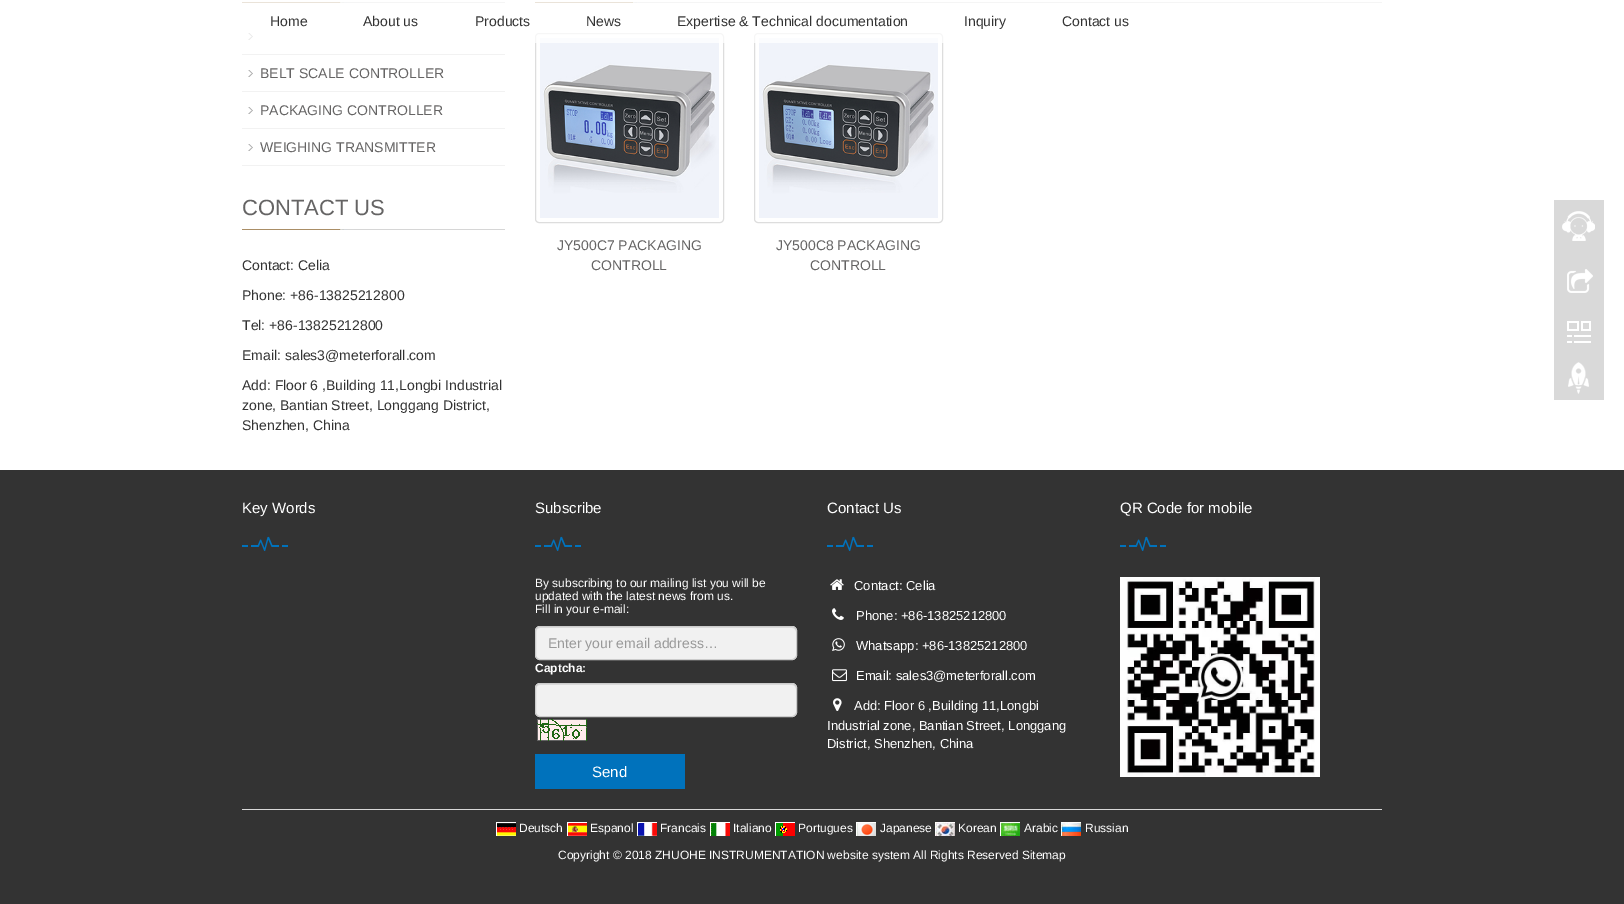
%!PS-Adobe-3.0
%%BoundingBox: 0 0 1624 904
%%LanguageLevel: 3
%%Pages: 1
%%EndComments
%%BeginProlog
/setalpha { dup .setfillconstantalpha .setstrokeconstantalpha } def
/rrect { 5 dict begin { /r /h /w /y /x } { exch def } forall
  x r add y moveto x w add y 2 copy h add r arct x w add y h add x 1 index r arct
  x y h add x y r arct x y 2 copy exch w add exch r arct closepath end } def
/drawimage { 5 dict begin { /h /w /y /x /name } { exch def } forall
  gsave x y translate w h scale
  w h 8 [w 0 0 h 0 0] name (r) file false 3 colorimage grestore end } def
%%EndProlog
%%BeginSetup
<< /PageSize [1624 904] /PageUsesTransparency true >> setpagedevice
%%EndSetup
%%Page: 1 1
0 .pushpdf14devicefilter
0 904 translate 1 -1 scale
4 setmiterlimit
1 setgray
0 0 1624 904 rectfill
(images/1.raw) 242 2 263 1 drawimage
(images/2.raw) 248 33 5 7 drawimage
(images/3.raw) 535 2 847 1 drawimage
0.867 setgray
535.5 33.5 188 189 3.5 rrect stroke
(images/4.raw) 540 38 179 180 drawimage
754.5 33.5 188 189 3.5 rrect stroke
(images/5.raw) 759 38 179 180 drawimage
0.75 setalpha
1 setgray
242 2 1140 41 rectfill
1 setalpha
0.949 setgray
242 54 263 1 rectfill
(images/2.raw) 248 70 5 7 drawimage
242 91 263 1 rectfill
(images/2.raw) 248 107 5 7 drawimage
242 128 263 1 rectfill
(images/2.raw) 248 144 5 7 drawimage
242 165 263 1 rectfill
(images/1.raw) 242 229 263 1 drawimage
(images/6.raw) 1554 200 50 200 drawimage
0.2 setgray
0 470 1624 434 rectfill
(images/7.raw) 242 536 46 15 drawimage
(images/7.raw) 535 536 46 15 drawimage
0.945 setgray
535 626 262 34 5 rrect fill
0.875 setgray
newpath 540 628 moveto 792 628 lineto 794 628 796 630 796 632 curveto 796 631 lineto 796 629 794 627 792 627 curveto 540 627 lineto 538 627 536 629 536 631 curveto 536 632 lineto 536 630 538 628 540 628 curveto closepath fill
0.8 setgray
535.5 626.5 261 33 4.5 rrect stroke
0.945 setgray
535 683 262 34 5 rrect fill
0.875 setgray
newpath 540 685 moveto 792 685 lineto 794 685 796 687 796 689 curveto 796 688 lineto 796 686 794 684 792 684 curveto 540 684 lineto 538 684 536 686 536 688 curveto 536 689 lineto 536 687 538 685 540 685 curveto closepath fill
0.8 setgray
535.5 683.5 261 33 4.5 rrect stroke
(images/8.raw) 537 719 50 22 drawimage
0 0.447 0.737 setrgbcolor
535 754 150 35 rectfill
(images/7.raw) 827 536 46 15 drawimage
(images/9.raw) 830 579 14 11 drawimage
(images/10.raw) 832 608 12 12 drawimage
(images/11.raw) 832 638 13 13 drawimage
(images/12.raw) 832 669 15 13 drawimage
(images/13.raw) 833 698 9 13 drawimage
(images/7.raw) 1120 536 46 15 drawimage
(images/14.raw) 1120 577 200 200 drawimage
0.847 setgray
242 809 1140 1 rectfill
(images/15.raw) 496 822 20 14 drawimage
(images/16.raw) 567 822 20 14 drawimage
(images/17.raw) 637 822 20 14 drawimage
(images/18.raw) 710 822 20 14 drawimage
(images/19.raw) 775 822 20 14 drawimage
(images/20.raw) 856 822 20 14 drawimage
(images/21.raw) 935 822 20 14 drawimage
(images/22.raw) 1000 822 20 14 drawimage
(images/23.raw) 1061 822 20 14 drawimage
/LiberationSans-Regular [14 0 0 -14 0 0] selectfont
0.2 setgray
270 26 moveto (Home) show
363 26 moveto (About us) show
475 26 moveto (Products) show
586 26 moveto (News) show
677 26 moveto (Expertise & Technical documentation) show
964 26 moveto (Inquiry) show
1062 26 moveto (Contact us) show
0.396 0.392 0.392 setrgbcolor
260 78 moveto (BELT SCALE CONTROLLER) show
260 115 moveto (PACKAGING CONTROLLER) show
260 152 moveto (WEIGHING TRANSMITTER) show
/LiberationSans-Regular [22 0 0 -22 0 0] selectfont
242 215 moveto (CONTACT US) show
/LiberationSans-Regular [14 0 0 -14 0 0] selectfont
0.2 setgray
242 270 moveto (Contact: Celia) show
242 300 moveto (Phone: +86-13825212800) show
242 330 moveto (Tel: +86-13825212800) show
242 360 moveto (Email: sales3@meterforall.com) show
242 390 moveto (Add: Floor 6 ,Building 11,Longbi Industrial) show
242 410 moveto (zone, Bantian Street, Longgang District,) show
242 430 moveto (Shenzhen, China) show
0.396 0.392 0.392 setrgbcolor
557 250 moveto (JY500C7 PACKAGING) show
591 270 moveto (CONTROLL) show
776 250 moveto (JY500C8 PACKAGING) show
810 270 moveto (CONTROLL) show
/LiberationSans-Regular [15 0 0 -15 0 0] selectfont
1 setgray
242 513 moveto (Key Words) show
535 513 moveto (Subscribe) show
/LiberationSans-Regular [12 0 0 -12 0 0] selectfont
535 587 moveto (By subscribing to our mailing list you will be) show
535 600 moveto (updated with the latest news from us.) show
535 613 moveto (Fill in your e-mail:) show
/LiberationSans-Regular [14 0 0 -14 0 0] selectfont
0.6 setgray
548 648 moveto (Enter your email address…) show
/LiberationSans-Bold [12 0 0 -12 0 0] selectfont
1 setgray
535 672 moveto (Captcha:) show
/LiberationSans-Regular [15 0 0 -15 0 0] selectfont
592 777 moveto (Send) show
827 513 moveto (Contact Us) show
/LiberationSans-Regular [13 0 0 -13 0 0] selectfont
854 590 moveto (Contact: Celia) show
856 620 moveto (Phone: +86-13825212800) show
856 650 moveto (Whatsapp: +86-13825212800) show
856 680 moveto (Email: sales3@meterforall.com) show
854 710 moveto (Add: Floor 6 ,Building 11,Longbi) show
827 730 moveto (Industrial zone, Bantian Street, Longgang) show
827 748 moveto (District, Shenzhen, China) show
/LiberationSans-Regular [15 0 0 -15 0 0] selectfont
1120 513 moveto (QR Code for mobile) show
/LiberationSans-Regular [12 0 0 -12 0 0] selectfont
519 832 moveto (Deutsch) show
590 832 moveto (Espanol) show
660 832 moveto (Francais) show
733 832 moveto (Italiano) show
798 832 moveto (Portugues) show
880 832 moveto (Japanese) show
958 832 moveto (Korean) show
1024 832 moveto (Arabic) show
1085 832 moveto (Russian) show
558 859 moveto (Copyright © 2018 ZHUOHE INSTRUMENTATION website system All Rights Reserved Sitemap) show
.poppdf14devicefilter showpage
%%EOF
